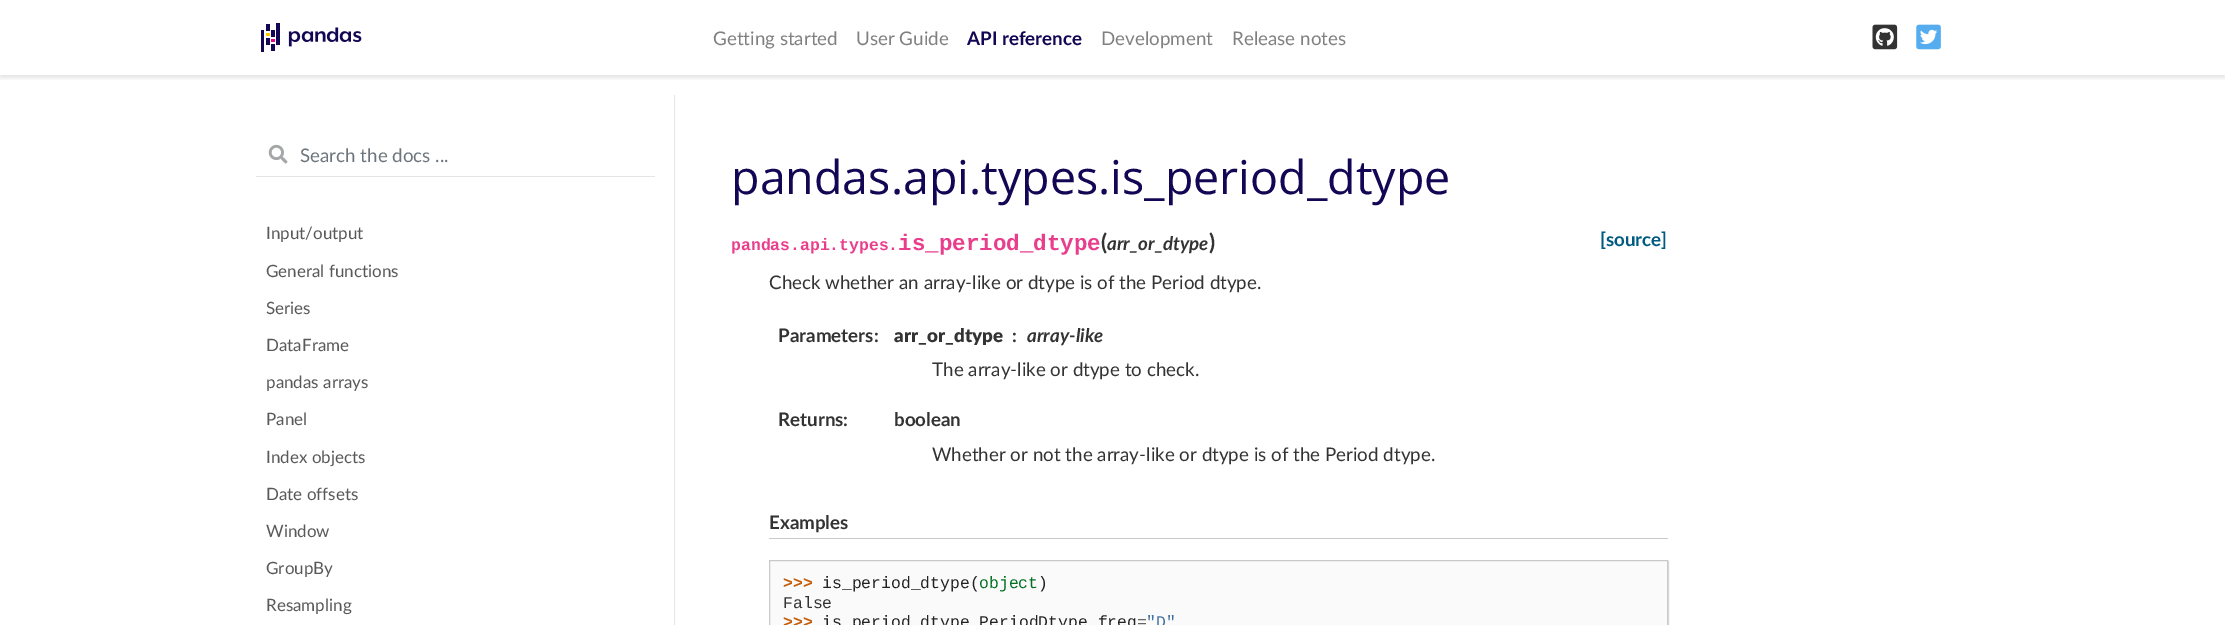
%!PS-Adobe-3.0
%%BoundingBox: 0 0 2225 625
%%LanguageLevel: 3
%%Pages: 1
%%EndComments
%%BeginProlog
/setalpha { dup .setfillconstantalpha .setstrokeconstantalpha } def
/rrect { 5 dict begin { /r /h /w /y /x } { exch def } forall
  x r add y moveto x w add y 2 copy h add r arct x w add y h add x 1 index r arct
  x y h add x y r arct x y 2 copy exch w add exch r arct closepath end } def
/softshadow { 12 dict begin { /a /b /q /h /w /y /x } { exch def } forall gsave /was 0 def
  9 -2 -9 { dup b mul 4 div /e exch def 1 sub .425 mul 2.718 exch exp 1 add a .99 .min exch div /now exch def
    1 1 now sub 1 was sub div sub setalpha /was now def
    w h .min e 2 mul add 0 gt { x e sub y e sub w e 2 mul add h e 2 mul add
      q e add b .6 mul add w h .min 2 div e add .min 0 .max rrect fill } if } for grestore end } def
/drawimage { 5 dict begin { /h /w /y /x /name } { exch def } forall
  gsave x y translate w h scale
  w h 8 [w 0 0 h 0 0] name (r) file false 3 colorimage grestore end } def
%%EndProlog
%%BeginSetup
<< /PageSize [2225 625] /PageUsesTransparency true >> setpagedevice
%%EndSetup
%%Page: 1 1
0 .pushpdf14devicefilter
0 625 translate 1 -1 scale
4 setmiterlimit
1 setgray
0 0 2225 625 rectfill
gsave
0 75 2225 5 rectclip
0 setgray
0 3 2225 75 0 2.5 0.11 softshadow
grestore
(images/1.raw) 261 23 101 29 drawimage
(images/2.raw) 1872 24 26 26 drawimage
(images/3.raw) 1916 24 25 26 drawimage
0.902 setgray
674 95 1 530 rectfill
(images/4.raw) 268 144 20 20 drawimage
0.898 setgray
256 176 399 1 rectfill
0.788 setgray
769 538 899 1 rectfill
0.847 setgray
770 561 899 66 0 0.5 1 softshadow
0.98 setgray
newpath 769.5 560.5 moveto 1667.5 560.5 lineto 1667.5 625.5 lineto 769.5 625.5 lineto closepath gsave fill grestore
0.788 setgray
stroke
/Lato-Regular [18.75 0 0 -18.75 0 0] selectfont
0.502 setgray
713 45 moveto (Getting started) show
856 45 moveto (User Guide) show
/Lato-Bold [18.75 0 0 -18.75 0 0] selectfont
0.075 0.024 0.329 setrgbcolor
967 45 moveto (API reference) show
/Lato-Regular [18.75 0 0 -18.75 0 0] selectfont
0.502 setgray
1101 45 moveto (Development) show
1232 45 moveto (Release notes) show
0.424 0.459 0.49 setrgbcolor
300 162 moveto (Search the docs ...) show
/Lato-Regular [17 0 0 -17 0 0] selectfont
0.349 setgray
266 239 moveto (Input/output) show
266 277 moveto (General functions) show
266 314 moveto (Series) show
266 351 moveto (DataFrame) show
266 388 moveto (pandas arrays) show
266 425 moveto (Panel) show
266 463 moveto (Index objects) show
266 500 moveto (Date offsets) show
266 537 moveto (Window) show
266 574 moveto (GroupBy) show
266 611 moveto (Resampling) show
/OpenSans-Regular [46.6 0 0 -46.6 0 0] selectfont
0.075 0.024 0.329 setrgbcolor
731 194 moveto (pandas.api.types.is_period_dtype) show
/LiberationMono-Bold [16.4 0 0 -16.4 0 0] selectfont
0.91 0.243 0.549 setrgbcolor
731 250 moveto (pandas.api.types.) show
/LiberationMono-Bold [22.5 0 0 -22.5 0 0] selectfont
898 250 moveto (is_period_dtype) show
/Lato-Bold [22.5 0 0 -22.5 0 0] selectfont
0.2 setgray
1101 250 moveto (\() show
/Lato-BoldItalic [18.75 0 0 -18.75 0 0] selectfont
1107 250 moveto (arr_or_dtype) show
/Lato-Bold [22.5 0 0 -22.5 0 0] selectfont
1209 250 moveto (\)) show
/Lato-Bold [18.75 0 0 -18.75 0 0] selectfont
0 0.357 0.506 setrgbcolor
1600 246 moveto ([source]) show
/Lato-Regular [18.75 0 0 -18.75 0 0] selectfont
0.2 setgray
769 289 moveto (Check whether an array-like or dtype is of the Period dtype.) show
/Lato-Bold [18.75 0 0 -18.75 0 0] selectfont
778 342 moveto (Parameters:) show
/Lato-Black [18.75 0 0 -18.75 0 0] selectfont
894 342 moveto (arr_or_dtype) show
/Lato-Bold [18.75 0 0 -18.75 0 0] selectfont
1012 342 moveto (:) show
/Lato-BoldItalic [18.75 0 0 -18.75 0 0] selectfont
1027 342 moveto (array-like) show
/Lato-Regular [18.75 0 0 -18.75 0 0] selectfont
932 376 moveto (The array-like or dtype to check.) show
/Lato-Bold [18.75 0 0 -18.75 0 0] selectfont
778 426 moveto (Returns:) show
894 426 moveto (boolean) show
/Lato-Regular [18.75 0 0 -18.75 0 0] selectfont
932 461 moveto (Whether or not the array-like or dtype is of the Period dtype.) show
/Lato-Bold [18.75 0 0 -18.75 0 0] selectfont
769 529 moveto (Examples) show
/LiberationMono-Bold [16.4 0 0 -16.4 0 0] selectfont
0.776 0.365 0.035 setrgbcolor
783 588 moveto (>>>) show
/LiberationMono-Regular [16.4 0 0 -16.4 0 0] selectfont
0.133 setgray
822 588 moveto (is_period_dtype\() show
0 0.439 0.125 setrgbcolor
979 588 moveto (object) show
0.133 setgray
1038 588 moveto (\)) show
0.2 setgray
783 608 moveto (False) show
/LiberationMono-Bold [16.4 0 0 -16.4 0 0] selectfont
0.776 0.365 0.035 setrgbcolor
783 627 moveto (>>>) show
/LiberationMono-Regular [16.4 0 0 -16.4 0 0] selectfont
0.133 setgray
822 627 moveto (is_period_dtype PeriodDtype freq) show
0.4 setgray
1137 627 moveto (=) show
0.251 0.439 0.627 setrgbcolor
1146 627 moveto ("D") show
.poppdf14devicefilter showpage
%%EOF
